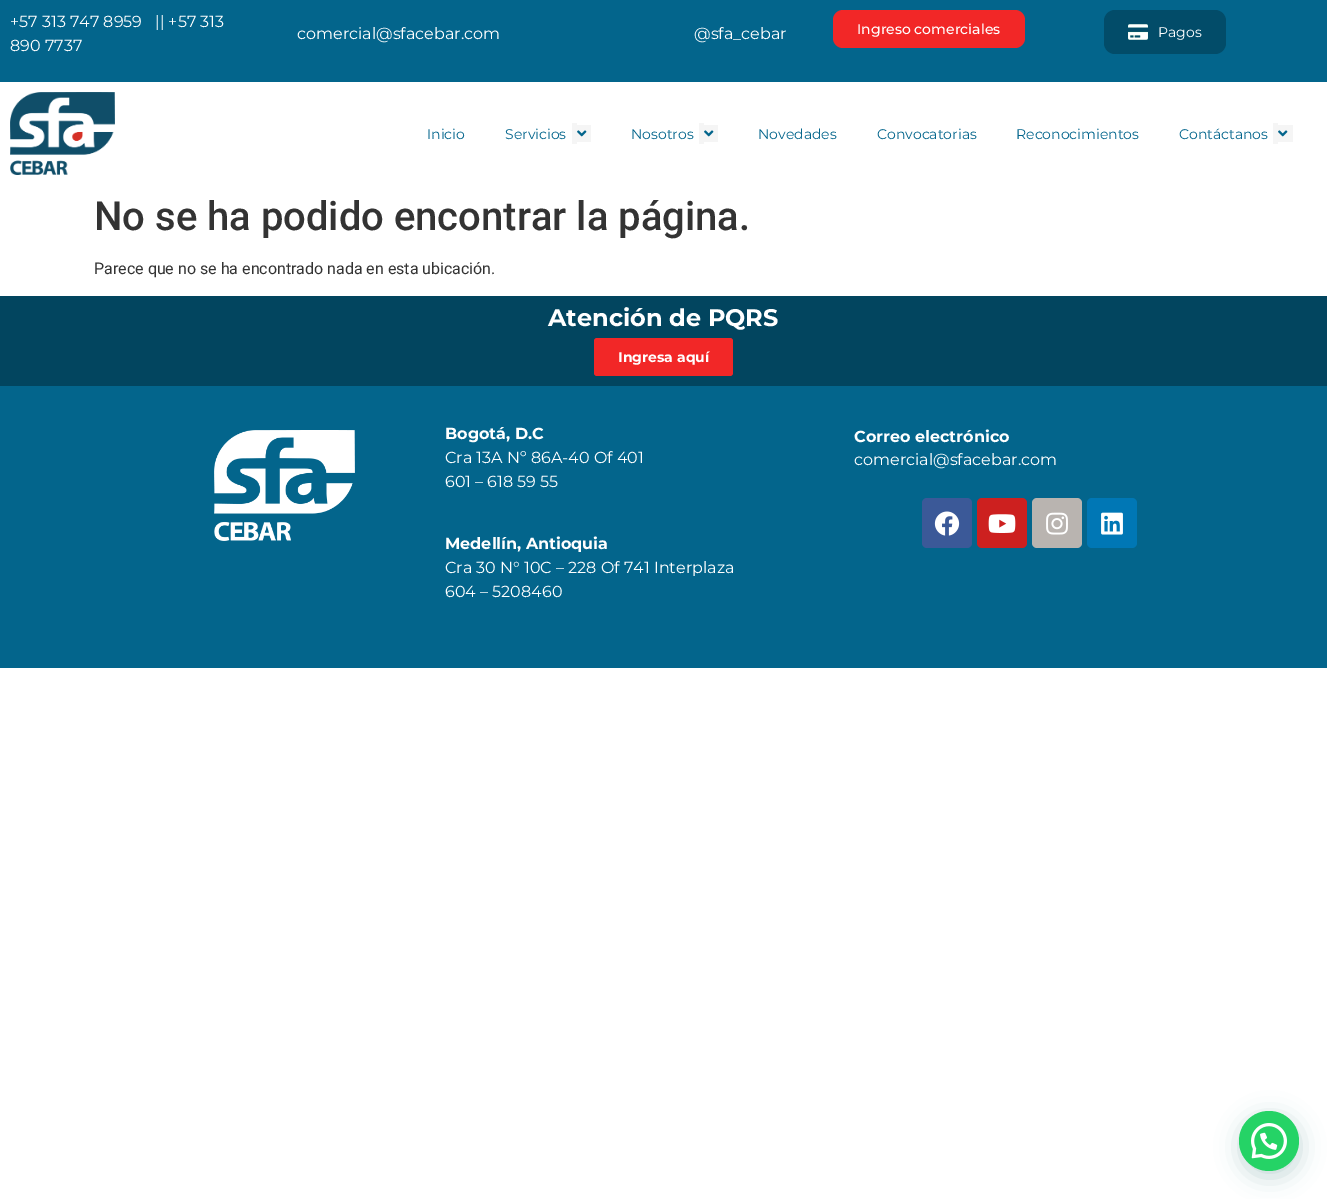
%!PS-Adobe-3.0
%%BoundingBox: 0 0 1327 1199
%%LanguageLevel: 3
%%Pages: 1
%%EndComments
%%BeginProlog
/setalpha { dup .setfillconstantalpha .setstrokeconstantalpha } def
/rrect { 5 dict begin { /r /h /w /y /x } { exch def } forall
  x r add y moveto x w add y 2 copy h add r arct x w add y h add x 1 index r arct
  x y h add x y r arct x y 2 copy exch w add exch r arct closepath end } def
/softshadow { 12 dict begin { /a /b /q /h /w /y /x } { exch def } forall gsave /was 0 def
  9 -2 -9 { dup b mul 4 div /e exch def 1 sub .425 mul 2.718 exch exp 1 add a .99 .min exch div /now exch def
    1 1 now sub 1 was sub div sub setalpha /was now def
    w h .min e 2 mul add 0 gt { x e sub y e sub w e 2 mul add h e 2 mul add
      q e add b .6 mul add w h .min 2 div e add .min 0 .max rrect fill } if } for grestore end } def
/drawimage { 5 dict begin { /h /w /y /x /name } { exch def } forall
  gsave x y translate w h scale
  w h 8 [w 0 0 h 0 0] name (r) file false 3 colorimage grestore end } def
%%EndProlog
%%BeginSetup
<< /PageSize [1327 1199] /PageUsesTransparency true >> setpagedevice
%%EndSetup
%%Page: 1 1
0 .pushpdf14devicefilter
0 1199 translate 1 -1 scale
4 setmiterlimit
1 setgray
0 0 1327 1199 rectfill
0.012 0.396 0.549 setrgbcolor
0 0 1327 82 rectfill
0.949 0.153 0.153 setrgbcolor
833 10 192 38 10 rrect fill
0.008 0.298 0.412 setrgbcolor
1104 10 122 44 11 rrect fill
(images/1.raw) 1128 24 20 16 drawimage
(images/2.raw) 10 92 105 83 drawimage
0.961 setgray
572 123 5 21 rectfill
577 125 14 17 rectfill
(images/3.raw) 577 130 10 7 drawimage
699 123 5 21 rectfill
704 125 14 17 rectfill
(images/3.raw) 704 130 10 7 drawimage
1273 123 5 21 rectfill
1278 125 15 17 rectfill
(images/3.raw) 1278 130 10 7 drawimage
0.008 0.271 0.373 setrgbcolor
0 296 1327 90 rectfill
0.949 0.153 0.153 setrgbcolor
594 338 139 38 3 rrect fill
0.012 0.396 0.549 setrgbcolor
0 386 1327 282 rectfill
(images/4.raw) 214 430 141 111 drawimage
0.231 0.349 0.596 setrgbcolor
922 498 50 50 5 rrect fill
(images/5.raw) 934 511 26 25 drawimage
0.804 0.125 0.122 setrgbcolor
977 498 50 50 5 rrect fill
(images/6.raw) 988 514 28 19 drawimage
0.725 0.706 0.69 setrgbcolor
1032 498 50 50 5 rrect fill
(images/7.raw) 1046 512 22 23 drawimage
0 0.467 0.71 setrgbcolor
1087 498 50 50 5 rrect fill
(images/8.raw) 1101 512 22 23 drawimage
0.027 0.369 0.329 setrgbcolor
1240 1117 60 60 30 12 0.24 softshadow
0.145 0.827 0.4 setrgbcolor
newpath 1269 1141 30 0 360 arc closepath fill
(images/9.raw) 1251 1123 36 36 drawimage
/Montserrat-Regular [16 0 0 -16 0 0] selectfont
1 setgray
10 27 moveto (+57 313 747 8959   || +57 313) show
10 51 moveto (890 7737) show
297 39 moveto (comercial@sfacebar.com) show
694 39 moveto (@sfa_cebar) show
/Montserrat-Medium [14 0 0 -14 0 0] selectfont
857 34 moveto (Ingreso comerciales) show
/Montserrat-Regular [14 0 0 -14 0 0] selectfont
1158 37 moveto (Pagos) show
0.012 0.396 0.549 setrgbcolor
427 139 moveto (Inicio) show
505 139 moveto (Servicios) show
631 139 moveto (Nosotros) show
758 139 moveto (Novedades) show
877 139 moveto (Convocatorias) show
1016 139 moveto (Reconocimientos) show
1179 139 moveto (Contáctanos) show
/Roboto-Medium [40 0 0 -40 0 0] selectfont
0.2 setgray
94 230 moveto (No se ha podido encontrar la página.) show
/Roboto-Regular [16 0 0 -16 0 0] selectfont
94 274 moveto (Parece que no se ha encontrado nada en esta ubicación.) show
/Montserrat-Bold [24 0 0 -24 0 0] selectfont
1 setgray
548 326 moveto (Atención de PQRS) show
/Montserrat-Bold [14 0 0 -14 0 0] selectfont
618 362 moveto (Ingresa aquí) show
/Montserrat-Bold [16 0 0 -16 0 0] selectfont
445 439 moveto (Bogotá, D.C) show
/Montserrat-Regular [16 0 0 -16 0 0] selectfont
445 463 moveto (Cra 13A Nº 86A-40 Of 401) show
445 487 moveto (601 – 618 59 55) show
/Montserrat-Bold [16 0 0 -16 0 0] selectfont
445 549 moveto (Medellín, Antioquia) show
/Montserrat-Regular [16 0 0 -16 0 0] selectfont
445 573 moveto (Cra 30 N° 10C – 228 Of 741 Interplaza) show
445 597 moveto (604 – 5208460) show
/Montserrat-Bold [16 0 0 -16 0 0] selectfont
854 442 moveto (Correo electrónico) show
/Montserrat-Regular [16 0 0 -16 0 0] selectfont
854 465 moveto (comercial@sfacebar.com) show
.poppdf14devicefilter showpage
%%EOF
